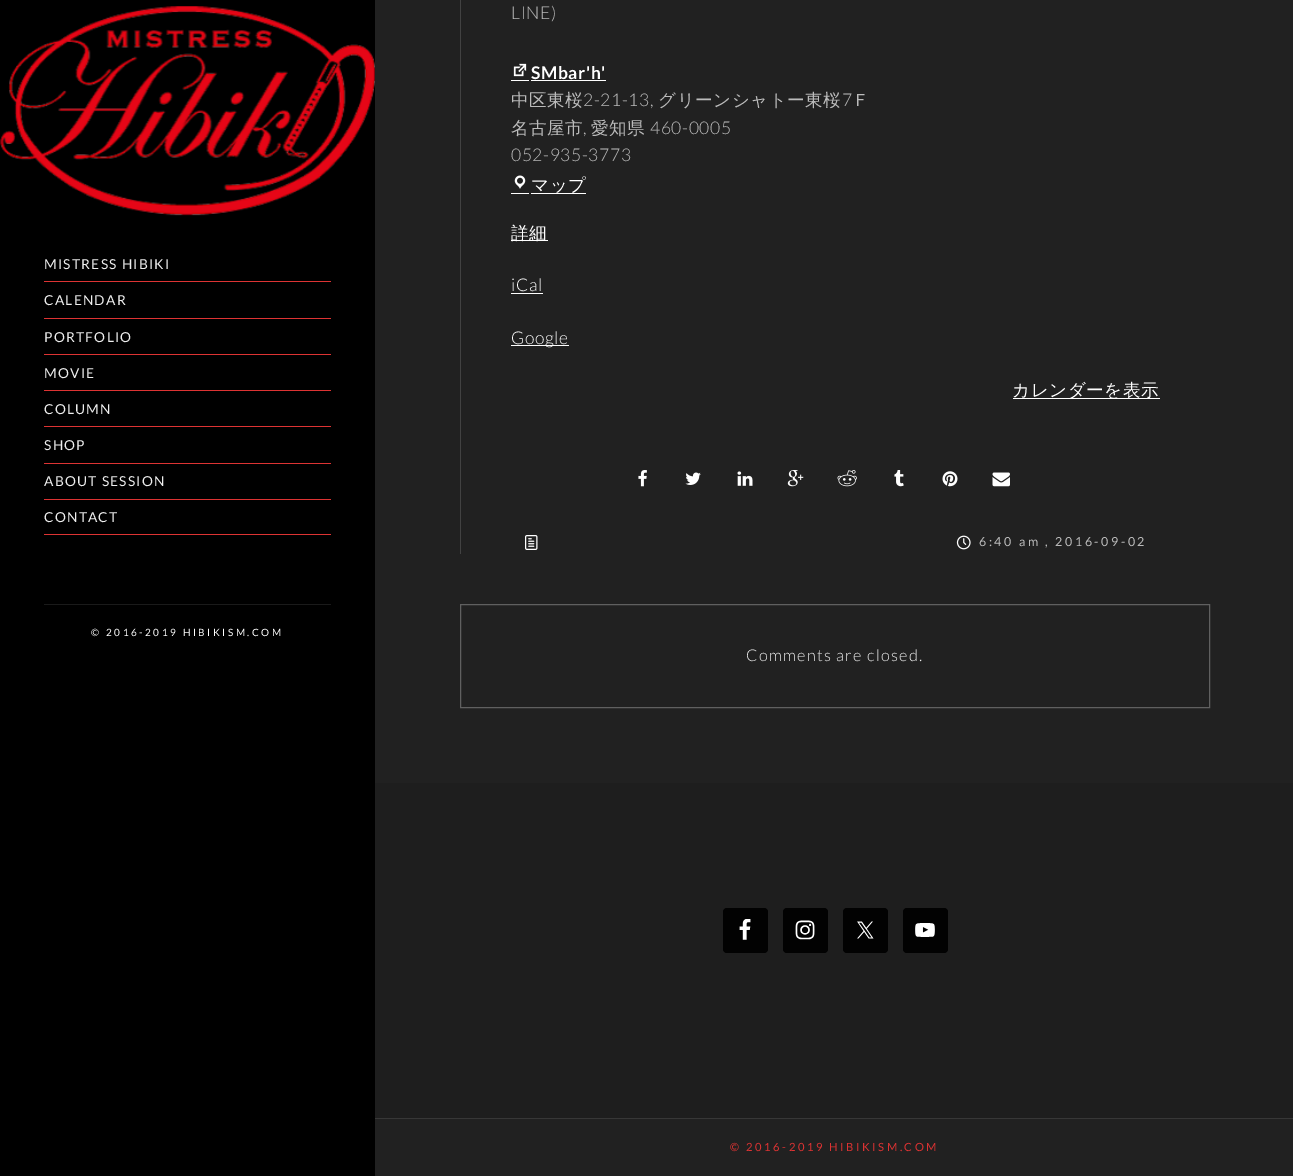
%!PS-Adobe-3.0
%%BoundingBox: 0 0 1293 1176
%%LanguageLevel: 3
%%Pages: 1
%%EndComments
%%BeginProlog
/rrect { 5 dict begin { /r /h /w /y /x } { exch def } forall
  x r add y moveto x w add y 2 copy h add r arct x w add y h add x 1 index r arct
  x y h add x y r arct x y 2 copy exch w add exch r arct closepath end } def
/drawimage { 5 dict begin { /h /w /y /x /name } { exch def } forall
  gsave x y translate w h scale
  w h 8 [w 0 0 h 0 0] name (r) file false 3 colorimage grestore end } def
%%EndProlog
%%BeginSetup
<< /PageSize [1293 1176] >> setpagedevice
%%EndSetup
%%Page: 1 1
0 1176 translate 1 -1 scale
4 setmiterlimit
0.129 setgray
0 0 1293 1176 rectfill
0 setgray
0 0 375 1176 rectfill
(images/1.raw) 0 6 375 210 drawimage
0.867 0.2 0.2 setrgbcolor
44 281 287 1 rectfill
44 318 287 1 rectfill
44 354 287 1 rectfill
44 390 287 1 rectfill
44 426 287 1 rectfill
44 463 287 1 rectfill
44 499 287 1 rectfill
44 534 287 1 rectfill
0.102 setgray
44 604 287 1 rectfill
0.259 setgray
460 0 1 554 rectfill
(images/2.raw) 513 63 14 14 drawimage
1 setgray
511 80 18 1 rectfill
531 80 75 1 rectfill
(images/3.raw) 514 175 12 14 drawimage
511 193 18 1 rectfill
531 193 55 1 rectfill
511 240 37 1 rectfill
511 293 32 1 rectfill
511 345 58 1 rectfill
1013 398 147 1 rectfill
(images/4.raw) 638 470 9 17 drawimage
(images/5.raw) 685 472 16 13 drawimage
(images/6.raw) 737 471 16 15 drawimage
(images/7.raw) 787 470 17 17 drawimage
(images/8.raw) 837 470 20 17 drawimage
(images/9.raw) 894 470 10 17 drawimage
(images/10.raw) 942 471 16 16 drawimage
(images/11.raw) 992 472 18 15 drawimage
(images/12.raw) 525 535 13 15 drawimage
(images/13.raw) 956 535 15 15 drawimage
0.376 setgray
460.5 604.5 749 103 rectstroke
0.118 setgray
375 783 918 335 rectfill
0.008 setgray
723 908 45 45 4 rrect fill
(images/14.raw) 739 919 12 21 drawimage
783 908 45 45 4 rrect fill
(images/15.raw) 795 920 20 20 drawimage
843 908 45 45 4 rrect fill
(images/16.raw) 857 921 17 18 drawimage
903 908 45 45 4 rrect fill
(images/17.raw) 915 923 20 14 drawimage
0.216 setgray
375 1118 918 1 rectfill
/Lato-Regular [13.75 0 0 -13.75 0 0] selectfont
0.933 setgray
44 269 moveto 1.25 0 (MISTRESS HIBIKI) ashow
44 305 moveto 1.25 0 (CALENDAR) ashow
44 342 moveto 1.25 0 (PORTFOLIO) ashow
44 378 moveto 1.25 0 (MOVIE) ashow
44 414 moveto 1.25 0 (COLUMN) ashow
44 450 moveto 1.25 0 (SHOP) ashow
44 486 moveto 1.25 0 (ABOUT SESSION) ashow
44 522 moveto 1.25 0 (CONTACT) ashow
/Lato-Regular [10 0 0 -10 0 0] selectfont
1 setgray
91 636 moveto 2.5 0 (© 2016-2019 HIBIKISM.COM) ashow
/Lato-Light [17.5 0 0 -17.5 0 0] selectfont
0.733 setgray
511 19 moveto 0.6 0 (LINE\)) ashow
/Lato-Bold [17.5 0 0 -17.5 0 0] selectfont
1 setgray
531 79 moveto 0.6 0 (SMbar'h') ashow
/WenQuanYiZenHei-Medium [17.5 0 0 -17.5 0 0] selectfont
0.733 setgray
511 106 moveto 0.6 0 (中区東桜) ashow
/Lato-Light [17.5 0 0 -17.5 0 0] selectfont
583 106 moveto 0.6 0 (2-21-13,) ashow
/WenQuanYiZenHei-Medium [17.5 0 0 -17.5 0 0] selectfont
658 106 moveto 0.6 0 (グリーンシャトー東桜) ashow
/Lato-Light [17.5 0 0 -17.5 0 0] selectfont
842 106 moveto 0.6 0 (7) ashow
/WenQuanYiZenHei-Medium [17.5 0 0 -17.5 0 0] selectfont
852 106 moveto 0.6 0 (Ｆ) ashow
511 134 moveto 0.6 0 (名古屋市) ashow
/Lato-Light [17.5 0 0 -17.5 0 0] selectfont
583 134 moveto 0.6 0 (,) ashow
/WenQuanYiZenHei-Medium [17.5 0 0 -17.5 0 0] selectfont
591 134 moveto 0.6 0 (愛知県) ashow
/Lato-Light [17.5 0 0 -17.5 0 0] selectfont
650 134 moveto 0.6 0 (460-0005) ashow
511 161 moveto 0.6 0 (052-935-3773) ashow
/WenQuanYiZenHei-Medium [17.5 0 0 -17.5 0 0] selectfont
1 setgray
531 191 moveto 0.6 0 (マップ) ashow
511 239 moveto 0.6 0 (詳細) ashow
/Lato-Light [17.5 0 0 -17.5 0 0] selectfont
511 291 moveto 0.6 0 (iCal) ashow
511 344 moveto 0.6 0 (Google) ashow
/WenQuanYiZenHei-Medium [17.5 0 0 -17.5 0 0] selectfont
1012 396 moveto 0.6 0 (カレンダーを表示) ashow
/Lato-Regular [12.5 0 0 -12.5 0 0] selectfont
0.733 setgray
979 546 moveto 2.5 0 (6:40 am , 2016-09-02) ashow
/Lato-Light [16.25 0 0 -16.25 0 0] selectfont
0.933 setgray
746 661 moveto 1.25 0 (Comments are closed.) ashow
/Lato-Regular [11.25 0 0 -11.25 0 0] selectfont
0.867 0.2 0.2 setrgbcolor
730 1151 moveto 2.5 0 (© 2016-2019 HIBIKISM.COM) ashow
showpage
%%EOF
